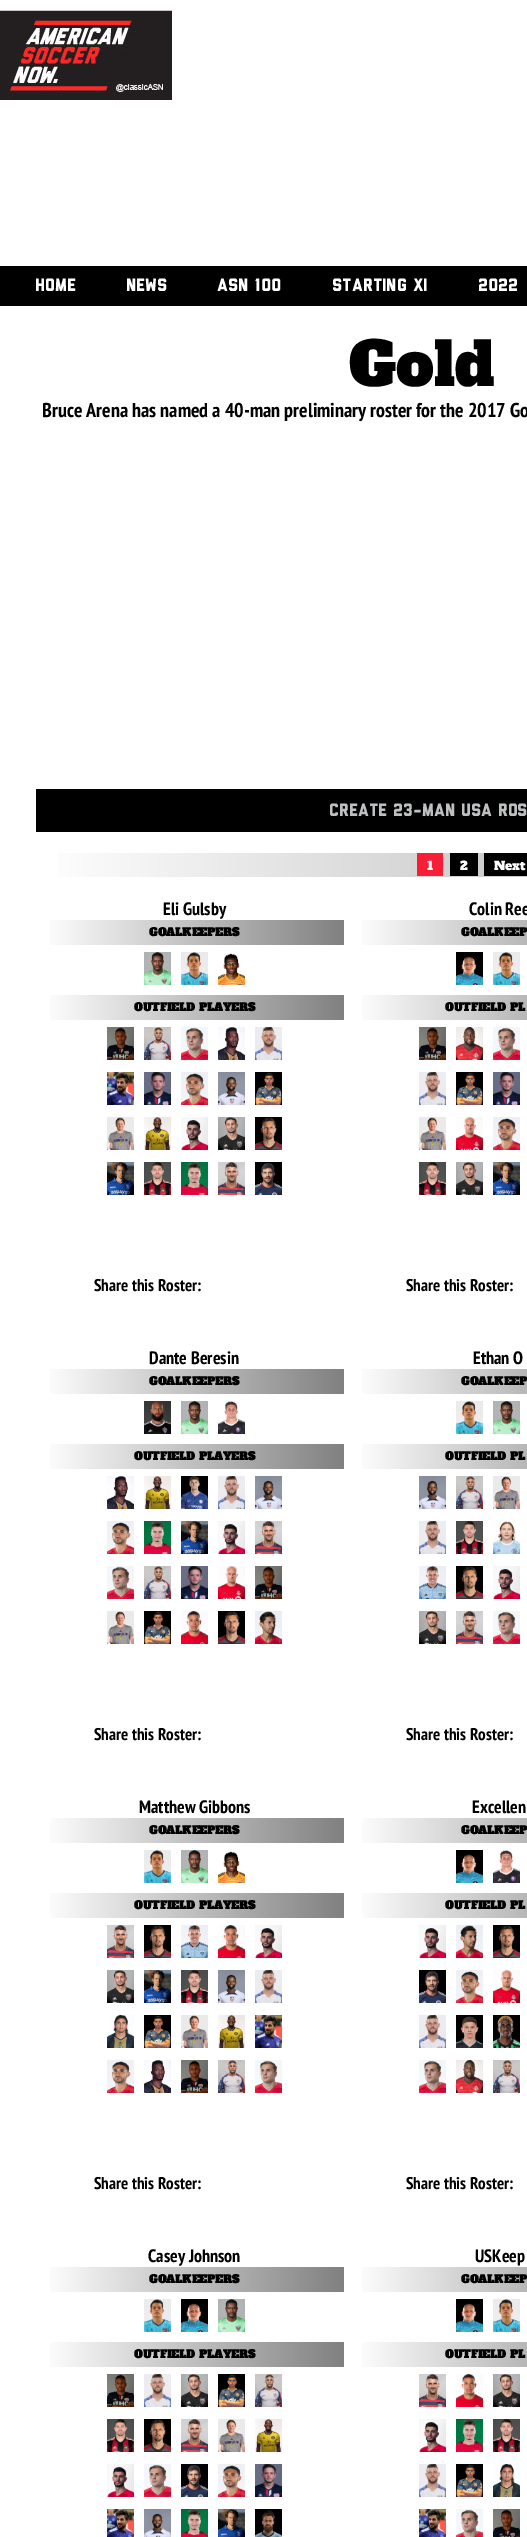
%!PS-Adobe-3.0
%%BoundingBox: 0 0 527 2537
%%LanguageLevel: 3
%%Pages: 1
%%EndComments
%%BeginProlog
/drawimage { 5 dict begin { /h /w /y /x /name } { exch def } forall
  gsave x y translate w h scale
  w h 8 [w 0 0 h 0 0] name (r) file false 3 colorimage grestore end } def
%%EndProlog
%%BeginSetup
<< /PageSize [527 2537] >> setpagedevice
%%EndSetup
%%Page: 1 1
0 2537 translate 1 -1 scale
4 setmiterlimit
1 setgray
0 0 527 2537 rectfill
(images/1.raw) 0 10 172 90 drawimage
0 setgray
0 266 527 40 rectfill
36 789 491 43 rectfill
gsave newpath 58 853 moveto 527 853 lineto 527 877 lineto 58 877 lineto closepath clip newpath
<< /ShadingType 2 /ColorSpace /DeviceRGB /Coords [35 865 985 865] /Extend [true true] /Function << /FunctionType 3 /Domain [0 1] /Functions [<< /FunctionType 2 /Domain [0 1] /C0 [1 1 1] /C1 [0.8 0.8 0.8] /N 1 >> << /FunctionType 2 /Domain [0 1] /C0 [0.8 0.8 0.8] /C1 [1 1 1] /N 1 >>] /Bounds [0.5] /Encode [0 1 0 1] >> >> shfill grestore
0.973 0.118 0.22 setrgbcolor
417 853 26 23 rectfill
0 setgray
450 853 28 23 rectfill
484 853 43 23 rectfill
gsave newpath 50 920 moveto 344 920 lineto 344 945 lineto 50 945 lineto closepath clip newpath
<< /ShadingType 2 /ColorSpace /DeviceRGB /Coords [44 933 344 933] /Extend [true true] /Function << /FunctionType 2 /Domain [0 1] /C0 [1 1 1] /C1 [0.502 0.502 0.502] /N 1 >> >> shfill grestore
(images/2.raw) 144 952 27 33 drawimage
(images/3.raw) 181 952 27 33 drawimage
(images/4.raw) 218 953 27 32 drawimage
gsave newpath 50 995 moveto 344 995 lineto 344 1020 lineto 50 1020 lineto closepath clip newpath
<< /ShadingType 2 /ColorSpace /DeviceRGB /Coords [44 1008 344 1008] /Extend [true true] /Function << /FunctionType 2 /Domain [0 1] /C0 [1 1 1] /C1 [0.502 0.502 0.502] /N 1 >> >> shfill grestore
(images/5.raw) 107 1027 27 33 drawimage
(images/6.raw) 144 1027 27 33 drawimage
(images/7.raw) 181 1027 27 33 drawimage
(images/8.raw) 218 1027 27 33 drawimage
(images/9.raw) 255 1027 27 33 drawimage
(images/10.raw) 107 1072 27 33 drawimage
(images/11.raw) 144 1072 27 33 drawimage
(images/12.raw) 181 1072 27 33 drawimage
(images/13.raw) 218 1072 27 33 drawimage
(images/14.raw) 255 1072 27 33 drawimage
(images/15.raw) 107 1117 27 33 drawimage
(images/16.raw) 144 1117 27 33 drawimage
(images/17.raw) 181 1117 27 33 drawimage
(images/18.raw) 218 1117 27 33 drawimage
(images/19.raw) 255 1117 27 33 drawimage
(images/20.raw) 107 1162 27 33 drawimage
(images/21.raw) 144 1162 27 33 drawimage
(images/22.raw) 181 1162 27 33 drawimage
(images/23.raw) 218 1162 27 33 drawimage
(images/24.raw) 255 1162 27 33 drawimage
gsave newpath 362 920 moveto 527 920 lineto 527 945 lineto 362 945 lineto closepath clip newpath
<< /ShadingType 2 /ColorSpace /DeviceRGB /Coords [356 933 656 933] /Extend [true true] /Function << /FunctionType 2 /Domain [0 1] /C0 [1 1 1] /C1 [0.502 0.502 0.502] /N 1 >> >> shfill grestore
(images/25.raw) 456 952 27 33 drawimage
(images/26.raw) 493 952 27 33 drawimage
gsave newpath 362 995 moveto 527 995 lineto 527 1020 lineto 362 1020 lineto closepath clip newpath
<< /ShadingType 2 /ColorSpace /DeviceRGB /Coords [356 1008 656 1008] /Extend [true true] /Function << /FunctionType 2 /Domain [0 1] /C0 [1 1 1] /C1 [0.502 0.502 0.502] /N 1 >> >> shfill grestore
(images/5.raw) 419 1027 27 33 drawimage
(images/27.raw) 456 1027 27 33 drawimage
(images/28.raw) 493 1027 27 33 drawimage
(images/9.raw) 419 1072 27 33 drawimage
(images/14.raw) 456 1072 27 33 drawimage
(images/11.raw) 493 1072 27 33 drawimage
(images/15.raw) 419 1117 27 33 drawimage
(images/29.raw) 456 1117 27 33 drawimage
(images/30.raw) 493 1117 27 33 drawimage
(images/21.raw) 419 1162 27 33 drawimage
(images/18.raw) 456 1162 27 33 drawimage
(images/20.raw) 493 1162 27 33 drawimage
gsave newpath 50 1369 moveto 344 1369 lineto 344 1394 lineto 50 1394 lineto closepath clip newpath
<< /ShadingType 2 /ColorSpace /DeviceRGB /Coords [44 1382 344 1382] /Extend [true true] /Function << /FunctionType 2 /Domain [0 1] /C0 [1 1 1] /C1 [0.502 0.502 0.502] /N 1 >> >> shfill grestore
(images/31.raw) 144 1401 27 33 drawimage
(images/32.raw) 181 1401 27 33 drawimage
(images/33.raw) 218 1401 27 33 drawimage
gsave newpath 50 1444 moveto 344 1444 lineto 344 1469 lineto 50 1469 lineto closepath clip newpath
<< /ShadingType 2 /ColorSpace /DeviceRGB /Coords [44 1457 344 1457] /Extend [true true] /Function << /FunctionType 2 /Domain [0 1] /C0 [1 1 1] /C1 [0.502 0.502 0.502] /N 1 >> >> shfill grestore
(images/8.raw) 107 1476 27 33 drawimage
(images/16.raw) 144 1476 27 33 drawimage
(images/34.raw) 181 1476 27 33 drawimage
(images/9.raw) 218 1476 27 33 drawimage
(images/13.raw) 255 1476 27 33 drawimage
(images/30.raw) 107 1521 27 33 drawimage
(images/35.raw) 144 1521 27 33 drawimage
(images/36.raw) 181 1521 27 33 drawimage
(images/37.raw) 218 1521 27 33 drawimage
(images/23.raw) 255 1521 27 33 drawimage
(images/28.raw) 107 1566 27 33 drawimage
(images/6.raw) 144 1566 27 33 drawimage
(images/38.raw) 181 1566 27 33 drawimage
(images/29.raw) 218 1566 27 33 drawimage
(images/5.raw) 255 1566 27 33 drawimage
(images/39.raw) 107 1611 27 33 drawimage
(images/40.raw) 144 1611 27 33 drawimage
(images/41.raw) 181 1611 27 33 drawimage
(images/42.raw) 218 1611 27 33 drawimage
(images/43.raw) 255 1611 27 33 drawimage
gsave newpath 362 1369 moveto 527 1369 lineto 527 1394 lineto 362 1394 lineto closepath clip newpath
<< /ShadingType 2 /ColorSpace /DeviceRGB /Coords [356 1382 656 1382] /Extend [true true] /Function << /FunctionType 2 /Domain [0 1] /C0 [1 1 1] /C1 [0.502 0.502 0.502] /N 1 >> >> shfill grestore
(images/26.raw) 456 1401 27 33 drawimage
(images/2.raw) 493 1401 27 33 drawimage
gsave newpath 362 1444 moveto 527 1444 lineto 527 1469 lineto 362 1469 lineto closepath clip newpath
<< /ShadingType 2 /ColorSpace /DeviceRGB /Coords [356 1457 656 1457] /Extend [true true] /Function << /FunctionType 2 /Domain [0 1] /C0 [1 1 1] /C1 [0.502 0.502 0.502] /N 1 >> >> shfill grestore
(images/13.raw) 419 1476 27 33 drawimage
(images/6.raw) 456 1476 27 33 drawimage
(images/15.raw) 493 1476 27 33 drawimage
(images/9.raw) 419 1521 27 33 drawimage
(images/21.raw) 456 1521 27 33 drawimage
(images/44.raw) 493 1521 27 33 drawimage
(images/45.raw) 419 1566 27 33 drawimage
(images/19.raw) 456 1566 27 33 drawimage
(images/37.raw) 493 1566 27 33 drawimage
(images/46.raw) 419 1611 27 33 drawimage
(images/47.raw) 456 1611 27 33 drawimage
(images/48.raw) 493 1611 27 33 drawimage
gsave newpath 50 1818 moveto 344 1818 lineto 344 1843 lineto 50 1843 lineto closepath clip newpath
<< /ShadingType 2 /ColorSpace /DeviceRGB /Coords [44 1831 344 1831] /Extend [true true] /Function << /FunctionType 2 /Domain [0 1] /C0 [1 1 1] /C1 [0.502 0.502 0.502] /N 1 >> >> shfill grestore
(images/26.raw) 144 1850 27 33 drawimage
(images/32.raw) 181 1850 27 33 drawimage
(images/4.raw) 218 1851 27 32 drawimage
gsave newpath 50 1893 moveto 344 1893 lineto 344 1918 lineto 50 1918 lineto closepath clip newpath
<< /ShadingType 2 /ColorSpace /DeviceRGB /Coords [44 1906 344 1906] /Extend [true true] /Function << /FunctionType 2 /Domain [0 1] /C0 [1 1 1] /C1 [0.502 0.502 0.502] /N 1 >> >> shfill grestore
(images/23.raw) 107 1925 27 33 drawimage
(images/19.raw) 144 1925 27 33 drawimage
(images/49.raw) 181 1925 27 33 drawimage
(images/50.raw) 218 1925 27 33 drawimage
(images/37.raw) 255 1925 27 33 drawimage
(images/18.raw) 107 1970 27 33 drawimage
(images/20.raw) 144 1970 27 33 drawimage
(images/51.raw) 181 1970 27 33 drawimage
(images/13.raw) 218 1970 27 33 drawimage
(images/9.raw) 255 1970 27 33 drawimage
(images/52.raw) 107 2015 27 33 drawimage
(images/14.raw) 144 2015 27 33 drawimage
(images/53.raw) 181 2015 27 33 drawimage
(images/16.raw) 218 2015 27 33 drawimage
(images/10.raw) 255 2015 27 33 drawimage
(images/30.raw) 107 2060 27 33 drawimage
(images/8.raw) 144 2060 27 33 drawimage
(images/54.raw) 181 2060 27 33 drawimage
(images/6.raw) 218 2060 27 33 drawimage
(images/28.raw) 255 2060 27 33 drawimage
gsave newpath 362 1818 moveto 527 1818 lineto 527 1843 lineto 362 1843 lineto closepath clip newpath
<< /ShadingType 2 /ColorSpace /DeviceRGB /Coords [356 1831 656 1831] /Extend [true true] /Function << /FunctionType 2 /Domain [0 1] /C0 [1 1 1] /C1 [0.502 0.502 0.502] /N 1 >> >> shfill grestore
(images/25.raw) 456 1850 27 33 drawimage
(images/33.raw) 493 1850 27 33 drawimage
gsave newpath 362 1893 moveto 527 1893 lineto 527 1918 lineto 362 1918 lineto closepath clip newpath
<< /ShadingType 2 /ColorSpace /DeviceRGB /Coords [356 1906 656 1906] /Extend [true true] /Function << /FunctionType 2 /Domain [0 1] /C0 [1 1 1] /C1 [0.502 0.502 0.502] /N 1 >> >> shfill grestore
(images/37.raw) 419 1925 27 33 drawimage
(images/55.raw) 456 1925 27 33 drawimage
(images/19.raw) 493 1925 27 33 drawimage
(images/24.raw) 419 1970 27 33 drawimage
(images/30.raw) 456 1970 27 33 drawimage
(images/29.raw) 493 1970 27 33 drawimage
(images/9.raw) 419 2015 27 33 drawimage
(images/56.raw) 456 2015 27 33 drawimage
(images/57.raw) 493 2015 27 33 drawimage
(images/28.raw) 419 2060 27 33 drawimage
(images/27.raw) 456 2060 27 33 drawimage
(images/6.raw) 493 2060 27 33 drawimage
gsave newpath 50 2267 moveto 344 2267 lineto 344 2292 lineto 50 2292 lineto closepath clip newpath
<< /ShadingType 2 /ColorSpace /DeviceRGB /Coords [44 2280 344 2280] /Extend [true true] /Function << /FunctionType 2 /Domain [0 1] /C0 [1 1 1] /C1 [0.502 0.502 0.502] /N 1 >> >> shfill grestore
(images/26.raw) 144 2299 27 33 drawimage
(images/58.raw) 181 2299 27 33 drawimage
(images/2.raw) 218 2299 27 33 drawimage
gsave newpath 50 2342 moveto 344 2342 lineto 344 2367 lineto 50 2367 lineto closepath clip newpath
<< /ShadingType 2 /ColorSpace /DeviceRGB /Coords [44 2355 344 2355] /Extend [true true] /Function << /FunctionType 2 /Domain [0 1] /C0 [1 1 1] /C1 [0.502 0.502 0.502] /N 1 >> >> shfill grestore
(images/5.raw) 107 2374 27 33 drawimage
(images/9.raw) 144 2374 27 33 drawimage
(images/59.raw) 181 2374 27 33 drawimage
(images/14.raw) 218 2374 27 33 drawimage
(images/6.raw) 255 2374 27 33 drawimage
(images/21.raw) 107 2419 27 33 drawimage
(images/19.raw) 144 2419 27 33 drawimage
(images/60.raw) 181 2419 27 33 drawimage
(images/15.raw) 218 2419 27 33 drawimage
(images/16.raw) 255 2419 27 33 drawimage
(images/37.raw) 107 2464 27 33 drawimage
(images/28.raw) 144 2464 27 33 drawimage
(images/61.raw) 181 2464 27 33 drawimage
(images/30.raw) 218 2464 27 33 drawimage
(images/11.raw) 255 2464 27 33 drawimage
(images/62.raw) 107 2509 27 28 drawimage
(images/63.raw) 144 2509 27 28 drawimage
(images/64.raw) 181 2509 27 28 drawimage
(images/65.raw) 218 2509 27 28 drawimage
(images/66.raw) 255 2509 27 28 drawimage
gsave newpath 362 2267 moveto 527 2267 lineto 527 2292 lineto 362 2292 lineto closepath clip newpath
<< /ShadingType 2 /ColorSpace /DeviceRGB /Coords [356 2280 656 2280] /Extend [true true] /Function << /FunctionType 2 /Domain [0 1] /C0 [1 1 1] /C1 [0.502 0.502 0.502] /N 1 >> >> shfill grestore
(images/25.raw) 456 2299 27 33 drawimage
(images/26.raw) 493 2299 27 33 drawimage
gsave newpath 362 2342 moveto 527 2342 lineto 527 2367 lineto 362 2367 lineto closepath clip newpath
<< /ShadingType 2 /ColorSpace /DeviceRGB /Coords [356 2355 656 2355] /Extend [true true] /Function << /FunctionType 2 /Domain [0 1] /C0 [1 1 1] /C1 [0.502 0.502 0.502] /N 1 >> >> shfill grestore
(images/23.raw) 419 2374 27 33 drawimage
(images/50.raw) 456 2374 27 33 drawimage
(images/18.raw) 493 2374 27 33 drawimage
(images/37.raw) 419 2419 27 33 drawimage
(images/35.raw) 456 2419 27 33 drawimage
(images/21.raw) 493 2419 27 33 drawimage
(images/9.raw) 419 2464 27 33 drawimage
(images/14.raw) 456 2464 27 33 drawimage
(images/52.raw) 493 2464 27 33 drawimage
(images/62.raw) 419 2509 27 28 drawimage
(images/67.raw) 456 2509 27 28 drawimage
(images/68.raw) 493 2509 27 28 drawimage
/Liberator-Bold [18 0 0 -18 0 0] selectfont
1 setgray
35 291 moveto (HOME) show
126 291 moveto (NEWS) show
217 291 moveto (ASN 100) show
332 291 moveto (STARTING XI) show
478 291 moveto (2022) show
/AlfaSlabOne-Regular [60 0 0 -60 0 0] selectfont
0 setgray
349 386 moveto (Gold) show
/PTSansNarrow-Bold [20 0 0 -20 0 0] selectfont
42 417 moveto (Bruce Arena has named a 40-man preliminary roster for the 2017 Go) show
/Liberator-Bold [18 0 0 -18 0 0] selectfont
0.745 0.749 0.757 setrgbcolor
329 816 moveto (CREATE 23-MAN USA ROS) show
/AlfaSlabOne-Regular [12 0 0 -12 0 0] selectfont
1 setgray
427 870 moveto (1) show
460 870 moveto (2) show
494 870 moveto (Next) show
/PTSansNarrow-Bold [18 0 0 -18 0 0] selectfont
0 setgray
163 915 moveto (Eli Gulsby) show
/AlfaSlabOne-Bold [11 0 0 -11 0 0] selectfont
149 936 moveto (GOALKEEPERS) show
134 1011 moveto (OUTFIELD PLAYERS) show
/PTSansNarrow-Bold [17 0 0 -17 0 0] selectfont
94 1291 moveto (Share this Roster:) show
/PTSansNarrow-Bold [18 0 0 -18 0 0] selectfont
469 915 moveto (Colin Ree) show
/AlfaSlabOne-Bold [11 0 0 -11 0 0] selectfont
461 936 moveto (GOALKEEP) show
445 1011 moveto (OUTFIELD PL) show
/PTSansNarrow-Bold [17 0 0 -17 0 0] selectfont
406 1291 moveto (Share this Roster:) show
/PTSansNarrow-Bold [18 0 0 -18 0 0] selectfont
149 1364 moveto (Dante Beresin) show
/AlfaSlabOne-Bold [11 0 0 -11 0 0] selectfont
149 1385 moveto (GOALKEEPERS) show
134 1460 moveto (OUTFIELD PLAYERS) show
/PTSansNarrow-Bold [17 0 0 -17 0 0] selectfont
94 1740 moveto (Share this Roster:) show
/PTSansNarrow-Bold [18 0 0 -18 0 0] selectfont
473 1364 moveto (Ethan O) show
/AlfaSlabOne-Bold [11 0 0 -11 0 0] selectfont
461 1385 moveto (GOALKEEP) show
445 1460 moveto (OUTFIELD PL) show
/PTSansNarrow-Bold [17 0 0 -17 0 0] selectfont
406 1740 moveto (Share this Roster:) show
/PTSansNarrow-Bold [18 0 0 -18 0 0] selectfont
139 1813 moveto (Matthew Gibbons) show
/AlfaSlabOne-Bold [11 0 0 -11 0 0] selectfont
149 1834 moveto (GOALKEEPERS) show
134 1909 moveto (OUTFIELD PLAYERS) show
/PTSansNarrow-Bold [17 0 0 -17 0 0] selectfont
94 2189 moveto (Share this Roster:) show
/PTSansNarrow-Bold [18 0 0 -18 0 0] selectfont
472 1813 moveto (Excellen) show
/AlfaSlabOne-Bold [11 0 0 -11 0 0] selectfont
461 1834 moveto (GOALKEEP) show
445 1909 moveto (OUTFIELD PL) show
/PTSansNarrow-Bold [17 0 0 -17 0 0] selectfont
406 2189 moveto (Share this Roster:) show
/PTSansNarrow-Bold [18 0 0 -18 0 0] selectfont
148 2262 moveto (Casey Johnson) show
/AlfaSlabOne-Bold [11 0 0 -11 0 0] selectfont
149 2283 moveto (GOALKEEPERS) show
134 2358 moveto (OUTFIELD PLAYERS) show
/PTSansNarrow-Bold [18 0 0 -18 0 0] selectfont
475 2262 moveto (USKeep) show
/AlfaSlabOne-Bold [11 0 0 -11 0 0] selectfont
461 2283 moveto (GOALKEEP) show
445 2358 moveto (OUTFIELD PL) show
showpage
%%EOF
